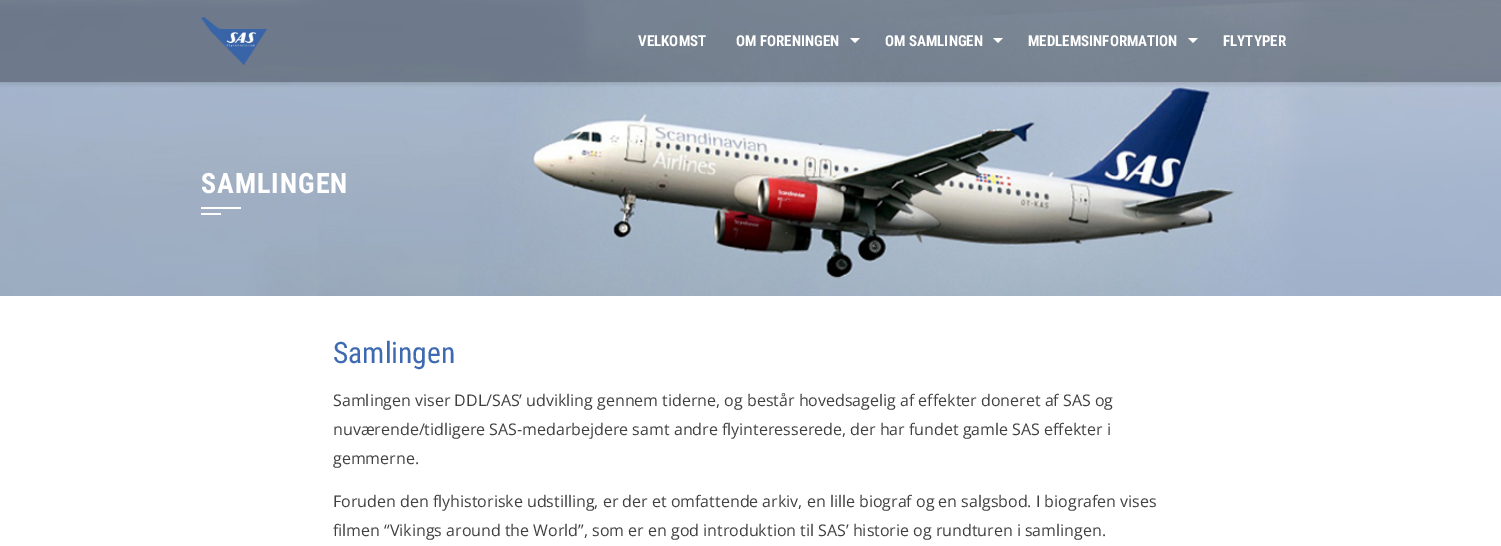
%!PS-Adobe-3.0
%%BoundingBox: 0 0 1501 546
%%LanguageLevel: 3
%%Pages: 1
%%EndComments
%%BeginProlog
/setalpha { dup .setfillconstantalpha .setstrokeconstantalpha } def
/rrect { 5 dict begin { /r /h /w /y /x } { exch def } forall
  x r add y moveto x w add y 2 copy h add r arct x w add y h add x 1 index r arct
  x y h add x y r arct x y 2 copy exch w add exch r arct closepath end } def
/softshadow { 12 dict begin { /a /b /q /h /w /y /x } { exch def } forall gsave /was 0 def
  9 -2 -9 { dup b mul 4 div /e exch def 1 sub .425 mul 2.718 exch exp 1 add a .99 .min exch div /now exch def
    1 1 now sub 1 was sub div sub setalpha /was now def
    w h .min e 2 mul add 0 gt { x e sub y e sub w e 2 mul add h e 2 mul add
      q e add b .6 mul add w h .min 2 div e add .min 0 .max rrect fill } if } for grestore end } def
/drawimage { 5 dict begin { /h /w /y /x /name } { exch def } forall
  gsave x y translate w h scale
  w h 8 [w 0 0 h 0 0] name (r) file false 3 colorimage grestore end } def
%%EndProlog
%%BeginSetup
<< /PageSize [1501 546] /PageUsesTransparency true >> setpagedevice
%%EndSetup
%%Page: 1 1
0 .pushpdf14devicefilter
0 546 translate 1 -1 scale
4 setmiterlimit
1 setgray
0 0 1501 546 rectfill
(images/2.raw) 0 0 1501 296 drawimage
gsave
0 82 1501 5 rectclip
0 setgray
0 0 1501 82 0 4 0.2 softshadow
grestore
0.4 setalpha
0.118 0.141 0.165 setrgbcolor
0 0 1501 82 rectfill
1 setalpha
(images/1.raw) 201 17 66 48 drawimage
1 setgray
newpath 850 38 moveto 860 38 lineto 855 43 lineto closepath fill
newpath 993 38 moveto 1003 38 lineto 998 43 lineto closepath fill
newpath 1188 38 moveto 1198 38 lineto 1193 43 lineto closepath fill
201 207 40 2 rectfill
201 213 20 2 rectfill
/RobotoCondensed-Bold [15 0 0 -15 0 0] selectfont
638 46 moveto (VELKOMST) show
736 46 moveto (OM FORENINGEN) show
885 46 moveto (OM SAMLINGEN) show
1028 46 moveto (MEDLEMSINFORMATION) show
1223 46 moveto (FLYTYPER) show
/RobotoCondensed-Bold [28 0 0 -28 0 0] selectfont
201 193 moveto 1 0 (SAMLINGEN) ashow
/RobotoCondensed-Regular [29.5 0 0 -29.5 0 0] selectfont
0.243 0.416 0.694 setrgbcolor
333 363 moveto (Samlingen) show
/OpenSans-Regular [16 0 0 -16 0 0] selectfont
0.251 setgray
333 406 moveto (Samlingen viser DDL/SAS’ udvikling gennem tiderne, og består hovedsagelig af effekter doneret af SAS og) show
333 435 moveto (nuværende/tidligere SAS-medarbejdere samt andre flyinteresserede, der har fundet gamle SAS effekter i) show
333 464 moveto (gemmerne.) show
333 507 moveto (Foruden den flyhistoriske udstilling, er der et omfattende arkiv, en lille biograf og en salgsbod. I biografen vises) show
333 536 moveto (filmen “Vikings around the World”, som er en god introduktion til SAS’ historie og rundturen i samlingen.) show
.poppdf14devicefilter showpage
%%EOF
